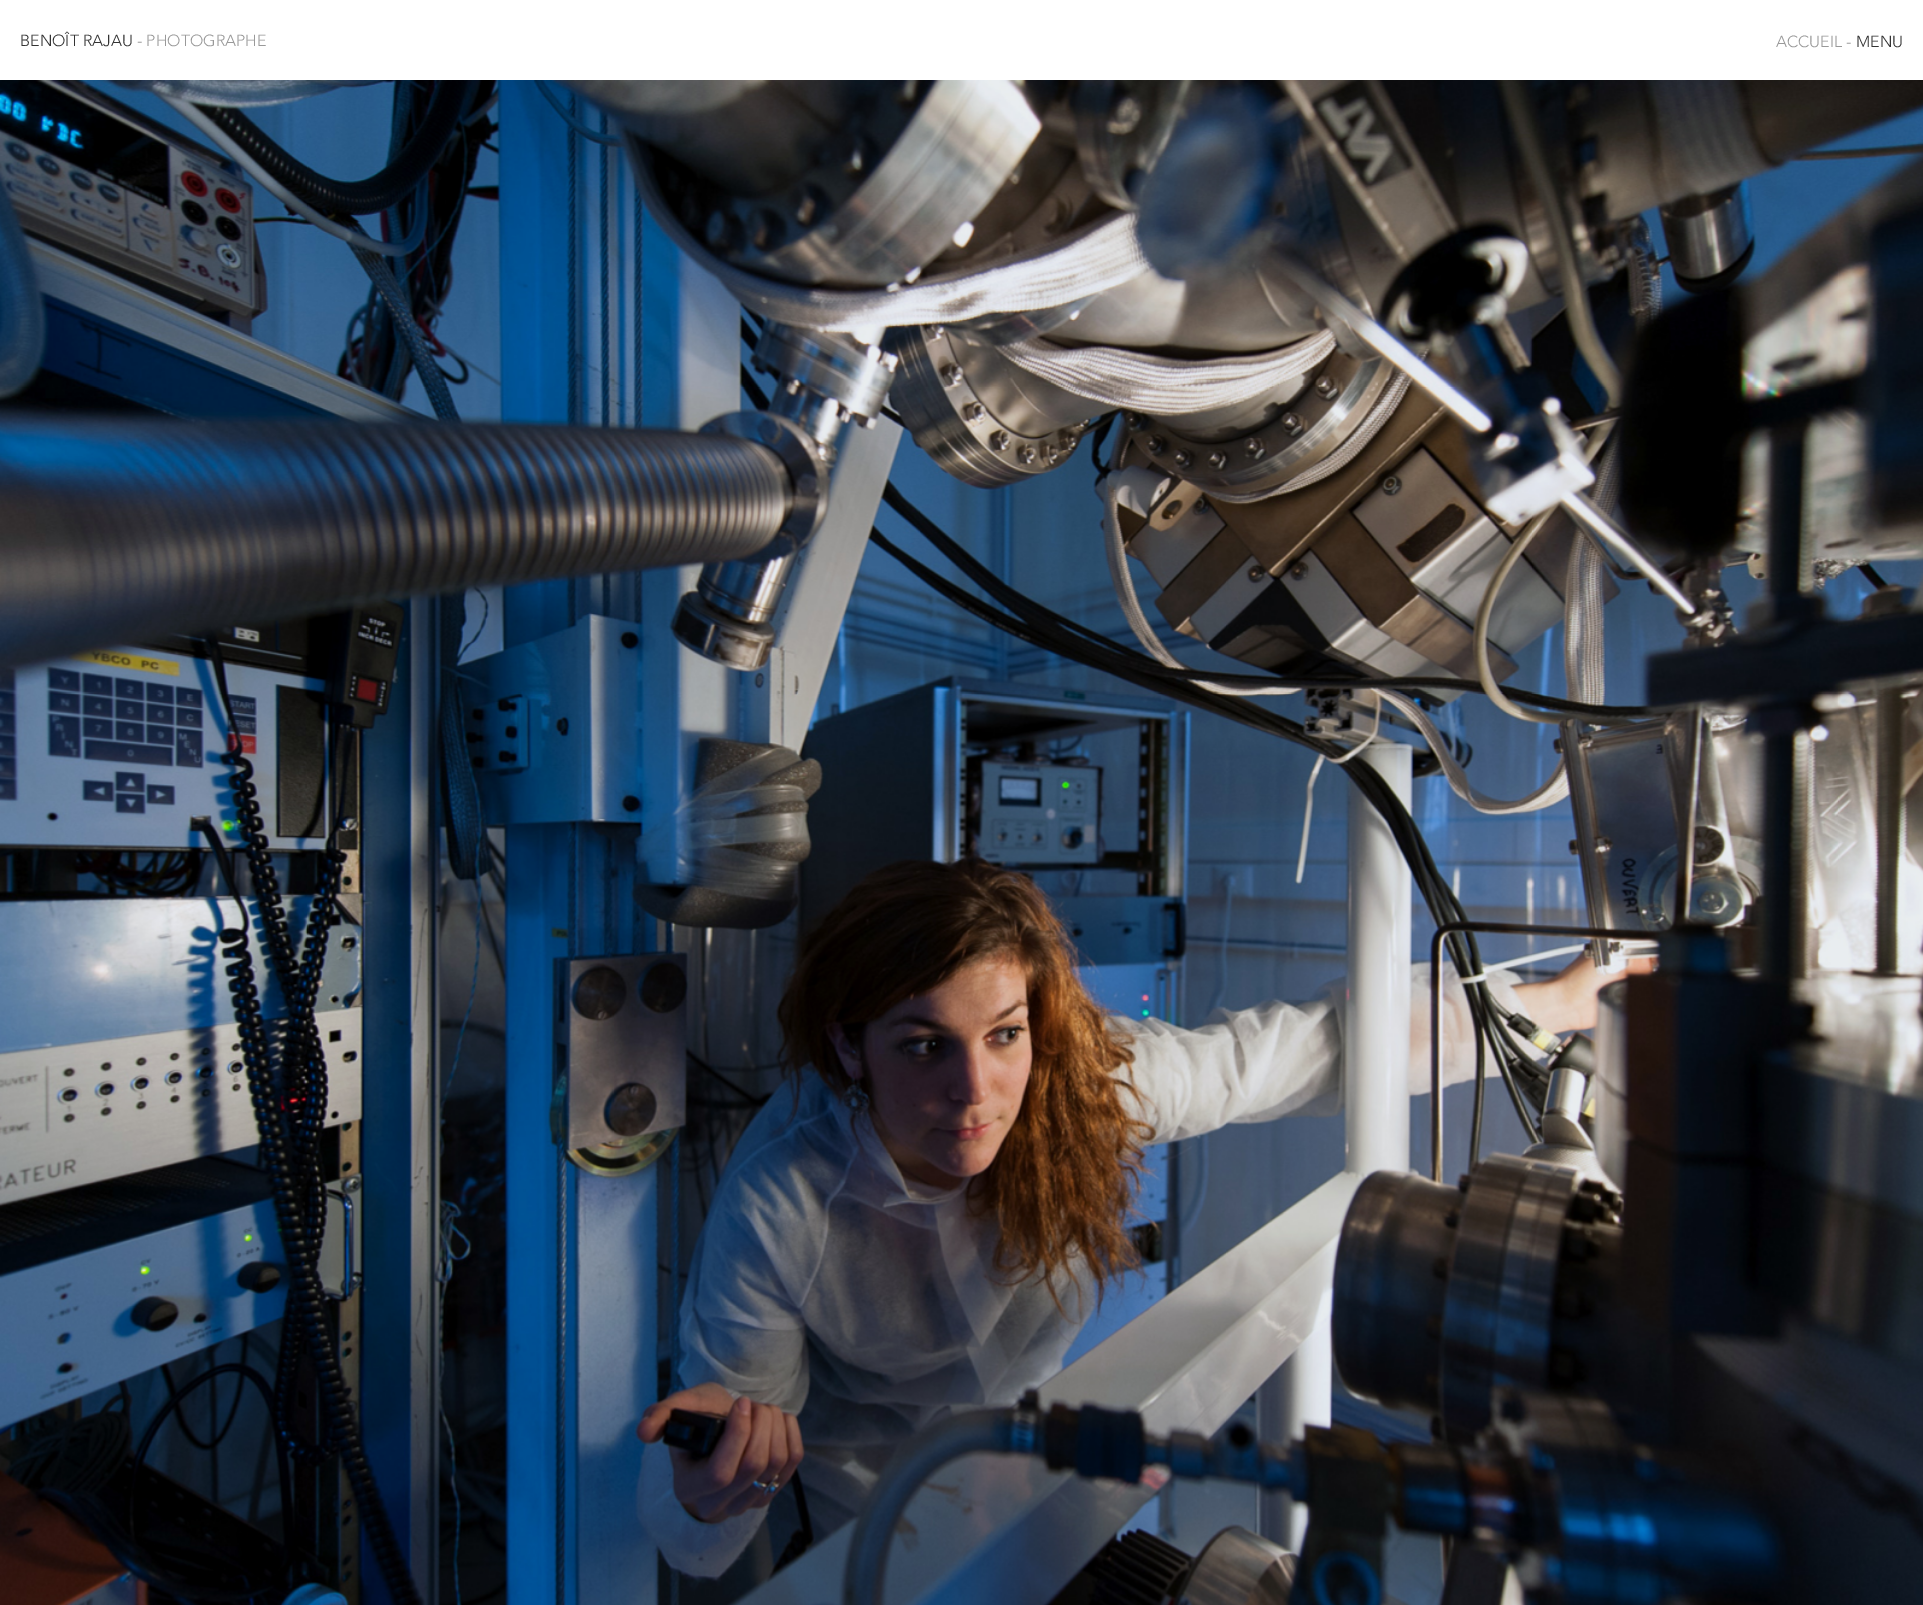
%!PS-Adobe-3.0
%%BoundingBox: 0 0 1923 1605
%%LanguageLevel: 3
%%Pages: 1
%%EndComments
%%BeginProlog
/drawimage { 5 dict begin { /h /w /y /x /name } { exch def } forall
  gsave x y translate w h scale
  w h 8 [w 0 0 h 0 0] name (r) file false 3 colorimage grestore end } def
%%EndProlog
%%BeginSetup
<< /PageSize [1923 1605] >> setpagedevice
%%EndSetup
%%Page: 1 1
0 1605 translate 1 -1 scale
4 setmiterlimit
1 setgray
0 0 1923 1605 rectfill
(images/1.raw) 0 80 1923 1525 drawimage
/Avenir-Light [16 0 0 -16 0 0] selectfont
0.2 setgray
20 46 moveto (BENOÎT RAJAU) show
0.6 setgray
137 46 moveto (- PHOTOGRAPHE) show
1776 47 moveto (ACCUEIL -) show
0.2 setgray
1856 47 moveto (MENU) show
showpage
%%EOF
